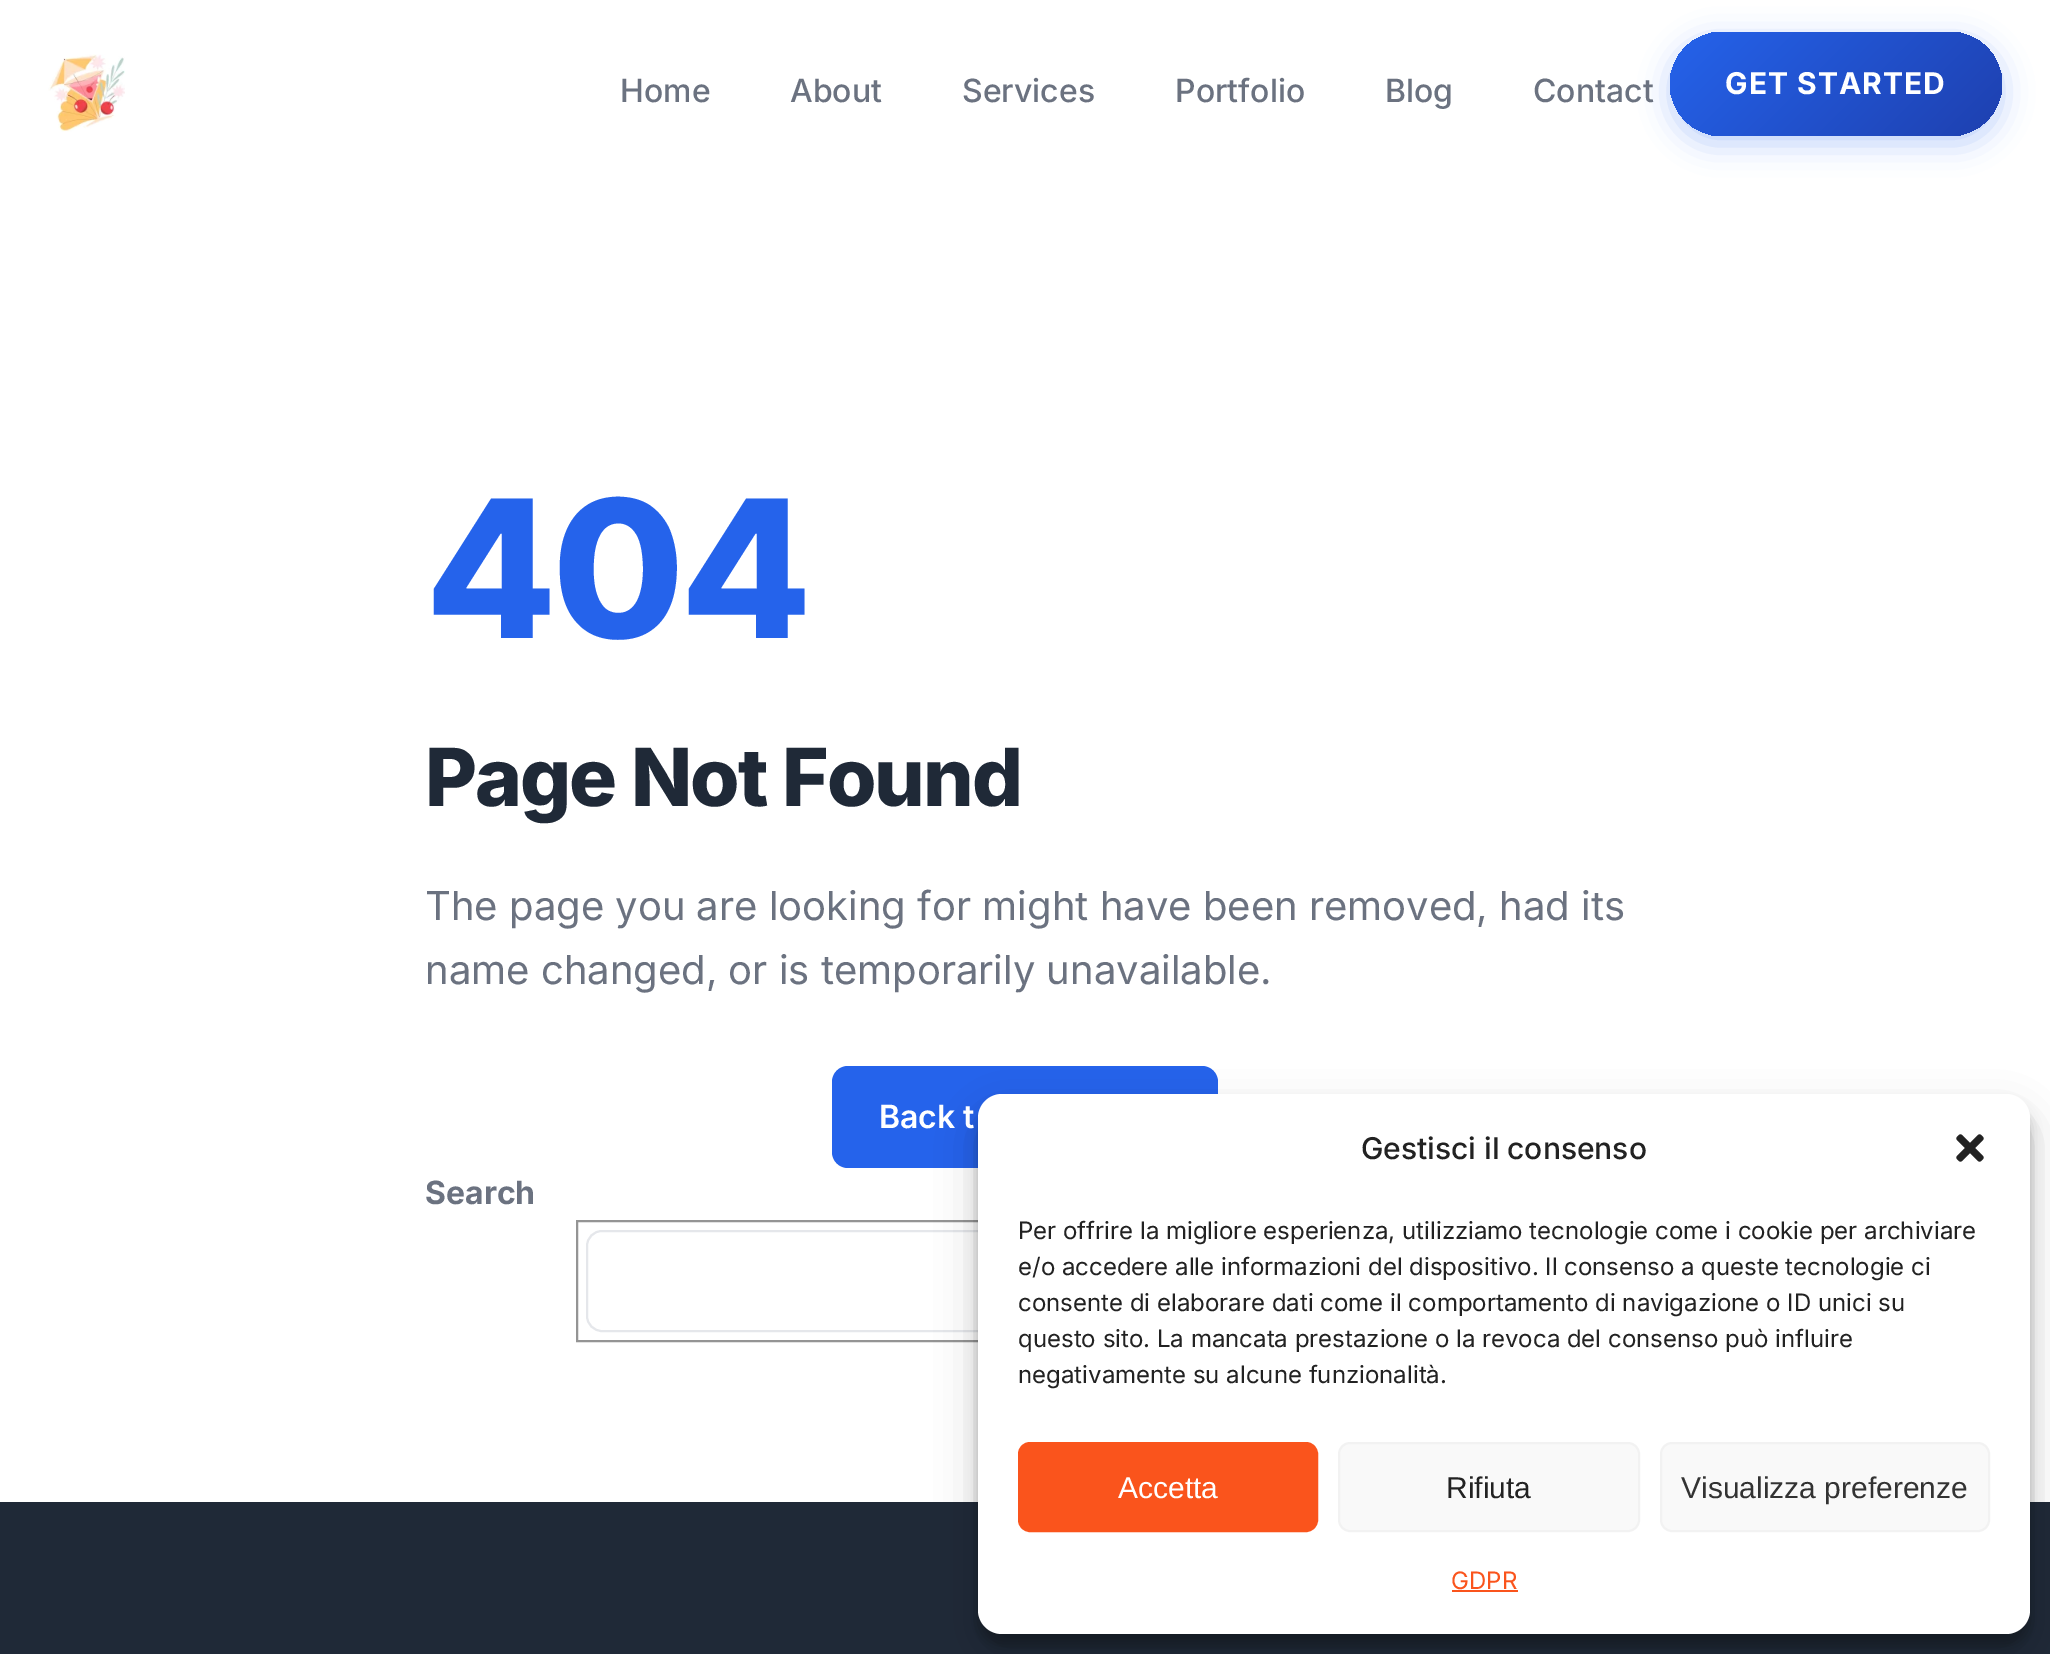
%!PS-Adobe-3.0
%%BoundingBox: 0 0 2050 1654
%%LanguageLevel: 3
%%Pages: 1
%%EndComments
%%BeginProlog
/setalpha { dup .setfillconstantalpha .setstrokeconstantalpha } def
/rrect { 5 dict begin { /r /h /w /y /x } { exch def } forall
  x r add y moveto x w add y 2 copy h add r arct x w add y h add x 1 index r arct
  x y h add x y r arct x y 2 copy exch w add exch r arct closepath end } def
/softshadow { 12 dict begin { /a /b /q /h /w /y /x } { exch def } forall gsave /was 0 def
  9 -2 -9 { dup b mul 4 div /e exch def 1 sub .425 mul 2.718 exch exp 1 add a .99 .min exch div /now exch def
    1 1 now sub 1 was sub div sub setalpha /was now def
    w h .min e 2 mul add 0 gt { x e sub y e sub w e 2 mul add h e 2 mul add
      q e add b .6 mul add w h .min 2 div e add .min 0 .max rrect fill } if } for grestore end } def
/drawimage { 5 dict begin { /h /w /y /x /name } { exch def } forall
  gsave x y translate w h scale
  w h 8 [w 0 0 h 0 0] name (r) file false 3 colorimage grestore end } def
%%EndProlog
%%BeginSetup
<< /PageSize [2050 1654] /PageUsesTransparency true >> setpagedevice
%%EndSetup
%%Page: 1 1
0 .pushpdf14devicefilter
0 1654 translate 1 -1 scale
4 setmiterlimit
1 setgray
0 0 2050 1654 rectfill
(images/1.raw) 48 54 77 78 drawimage
0.145 0.388 0.922 setrgbcolor
1670 40 332 104 52 15 0.3 softshadow
gsave 1670 32 332 104 52 rrect clip newpath
<< /ShadingType 2 /ColorSpace /DeviceRGB /Coords [1727 -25 1945 193] /Extend [true true] /Function << /FunctionType 2 /Domain [0 1] /C0 [0.145 0.388 0.922] /C1 [0.118 0.251 0.686] /N 1 >> >> shfill grestore
832 1066 386 102 16 rrect fill
0.58 setgray
2 setlinewidth
577 1221 898 120 rectstroke
0.898 0.906 0.922 setrgbcolor
587 1231 716 100 15 rrect stroke
0.122 0.161 0.216 setrgbcolor
0 1502 2050 152 rectfill
0 setgray
978 1106 1052 540 24 6 0.23 softshadow
978 1114 1052 540 24 20 0.19 softshadow
1 setgray
978 1094 1052 540 24 rrect fill
(images/2.raw) 1956 1134 28 28 drawimage
0.98 0.329 0.11 setrgbcolor
1019 1443 298 88 11 rrect gsave fill grestore
stroke
0.976 setgray
1339 1443 300 88 11 rrect gsave fill grestore
0.949 setgray
stroke
0.976 setgray
1661 1443 328 88 11 rrect gsave fill grestore
0.949 setgray
stroke
0.98 0.329 0.11 setrgbcolor
1452 1590 66 2 rectfill
/Inter-Medium [32 0 0 -32 0 0] selectfont
0.42 0.447 0.502 setrgbcolor
620 102 moveto (Home) show
790 102 moveto (About) show
962 102 moveto (Services) show
1175 102 moveto (Portfolio) show
1385 102 moveto (Blog) show
1533 102 moveto (Contact) show
/Inter-Bold [30 0 0 -30 0 0] selectfont
1 setgray
1725 94 moveto 1 0 (GET STARTED) ashow
/Inter-ExtraBold [192 0 0 -192 0 0] selectfont
0.145 0.388 0.922 setrgbcolor
425 638 moveto -5 0 (404) ashow
/Inter-ExtraBold [80 0 0 -80 0 0] selectfont
0.122 0.161 0.216 setrgbcolor
425 806 moveto -2 0 (Page Not Found) ashow
/Inter-Regular [40 0 0 -40 0 0] selectfont
0.42 0.447 0.502 setrgbcolor
425 920 moveto (The page you are looking for might have been removed, had its) show
425 984 moveto (name changed, or is temporarily unavailable.) show
/Inter-SemiBold [32 0 0 -32 0 0] selectfont
1 setgray
879 1128 moveto (Back t) show
/Inter-Bold [32 0 0 -32 0 0] selectfont
0.42 0.447 0.502 setrgbcolor
425 1204 moveto (Search) show
/Inter-Medium [30 0 0 -30 0 0] selectfont
0.133 setgray
1361 1159 moveto (Gestisci il consenso) show
/Inter-Regular [24 0 0 -24 0 0] selectfont
1018 1239 moveto (Per offrire la migliore esperienza, utilizziamo tecnologie come i cookie per archiviare) show
1018 1275 moveto (e/o accedere alle informazioni del dispositivo. Il consenso a queste tecnologie ci) show
1018 1311 moveto (consente di elaborare dati come il comportamento di navigazione o ID unici su) show
1018 1347 moveto (questo sito. La mancata prestazione o la revoca del consenso può influire) show
1018 1383 moveto (negativamente su alcune funzionalità.) show
/LiberationSans-Regular [30 0 0 -30 0 0] selectfont
1 setgray
1118 1498 moveto (Accetta) show
0.133 setgray
1446 1498 moveto (Rifiuta) show
0.2 setgray
1681 1498 moveto (Visualizza preferenze) show
/Inter-Regular [24 0 0 -24 0 0] selectfont
0.98 0.329 0.11 setrgbcolor
1451 1589 moveto (GDPR) show
.poppdf14devicefilter showpage
%%EOF
